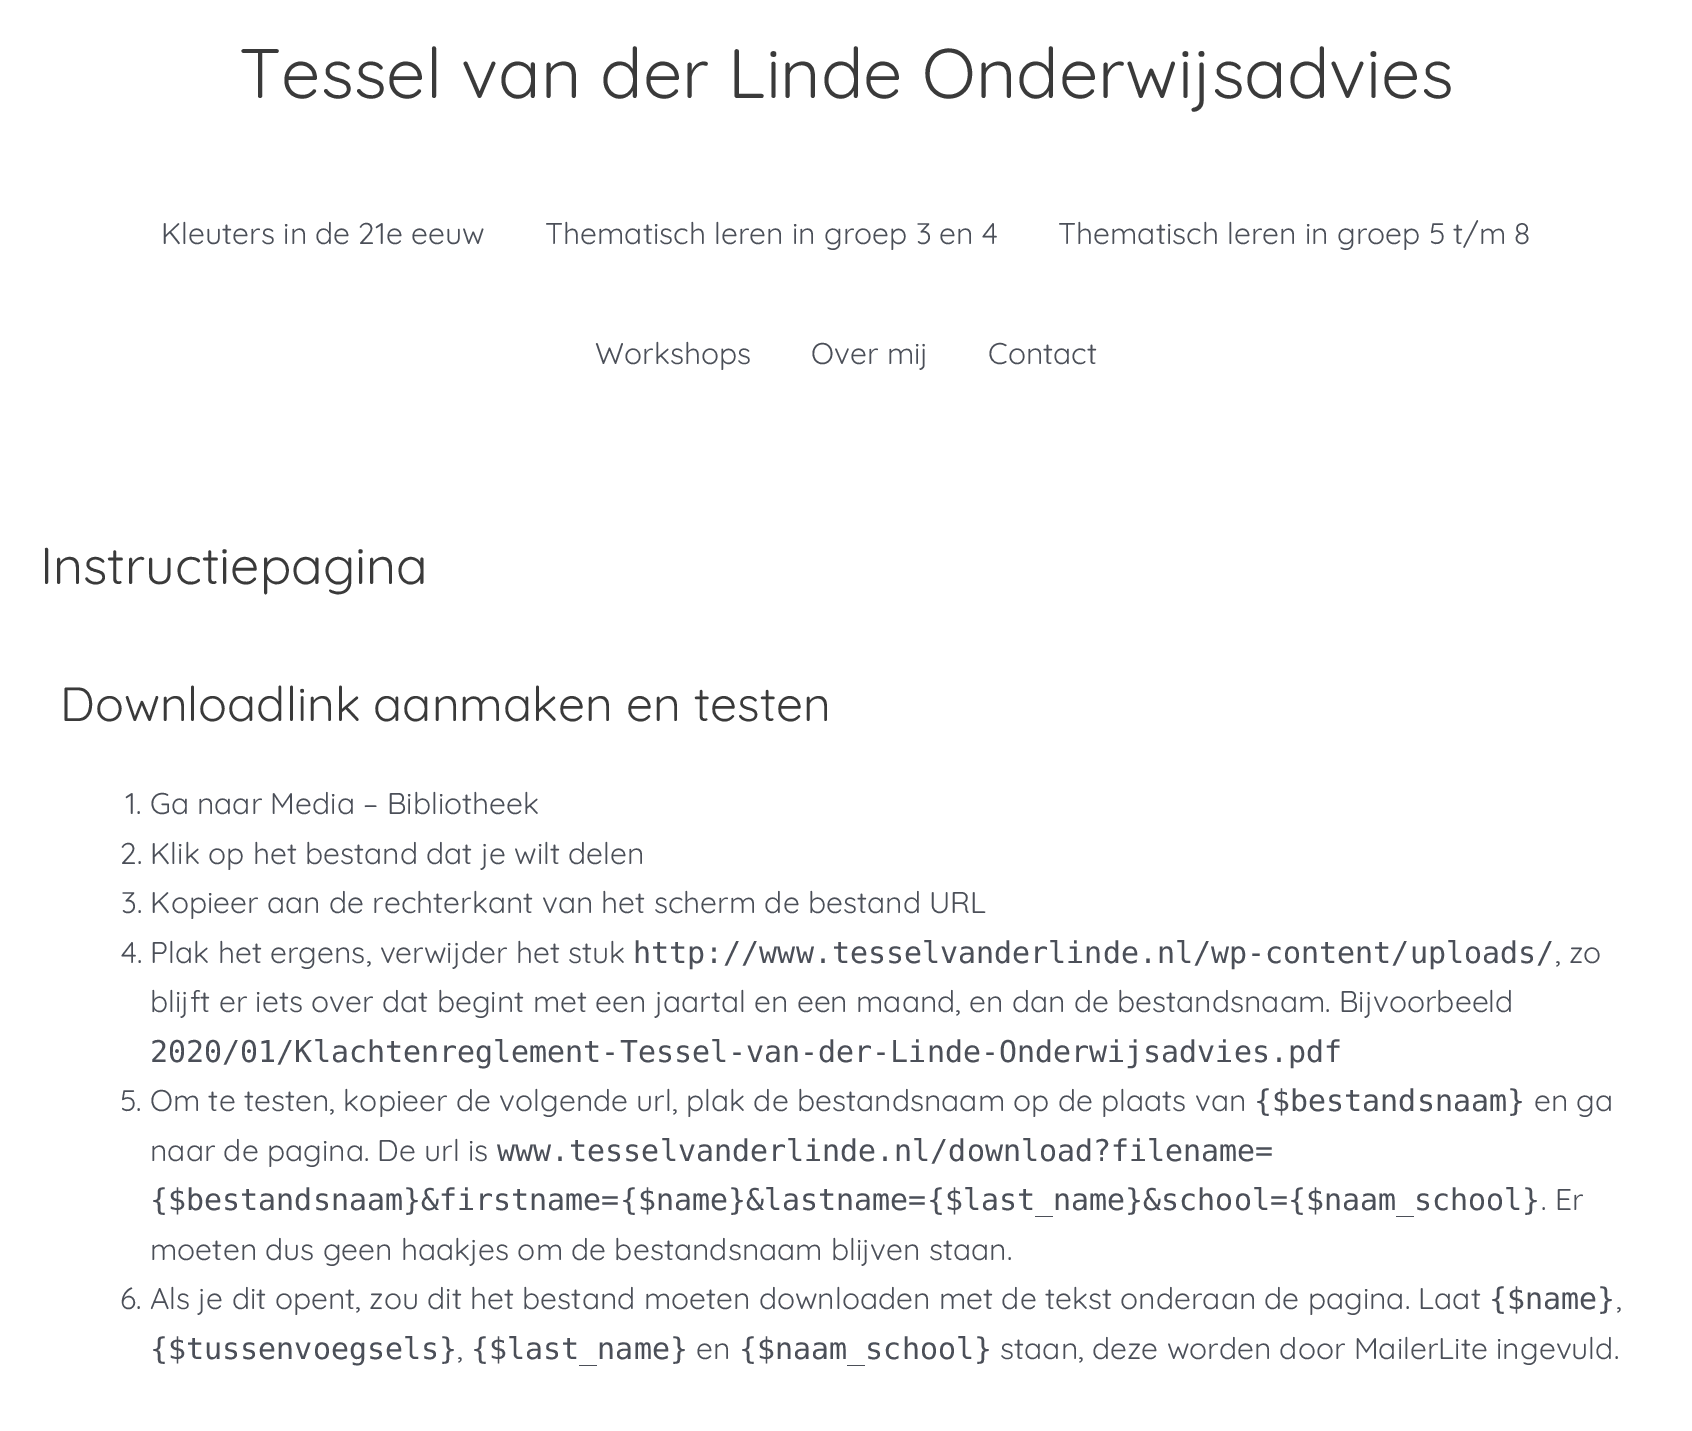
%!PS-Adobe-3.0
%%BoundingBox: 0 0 1692 1431
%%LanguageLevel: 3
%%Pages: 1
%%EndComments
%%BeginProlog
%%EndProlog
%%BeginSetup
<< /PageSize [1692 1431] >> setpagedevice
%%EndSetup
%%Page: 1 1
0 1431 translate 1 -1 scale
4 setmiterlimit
1 setgray
0 0 1692 1431 rectfill
/Quicksand-Regular [70 0 0 -70 0 0] selectfont
0.227 setgray
239 98 moveto (Tessel van der Linde Onderwijsadvies) show
/Quicksand-Regular [30 0 0 -30 0 0] selectfont
0.294 0.31 0.345 setrgbcolor
161 244 moveto (Kleuters in de 21e eeuw) show
545 244 moveto (Thematisch leren in groep 3 en 4) show
1058 244 moveto (Thematisch leren in groep 5 t/m 8) show
595 364 moveto (Workshops) show
811 364 moveto (Over mij) show
988 364 moveto (Contact) show
/Quicksand-Regular [52 0 0 -52 0 0] selectfont
0.227 setgray
40 584 moveto (Instructiepagina) show
/Quicksand-Regular [48 0 0 -48 0 0] selectfont
60 721 moveto (Downloadlink aanmaken en testen) show
/Quicksand-Regular [30 0 0 -30 0 0] selectfont
0.294 0.31 0.345 setrgbcolor
125 814 moveto (1. Ga naar Media – Bibliotheek) show
120 864 moveto (2. Klik op het bestand dat je wilt delen) show
121 913 moveto (3. Kopieer aan de rechterkant van het scherm de bestand URL) show
121 963 moveto (4. Plak het ergens, verwijder het stuk) show
/DejaVuSansMono-Regular [30 0 0 -30 0 0] selectfont
633 963 moveto (http://www.tesselvanderlinde.nl/wp-content/uploads/) show
/Quicksand-Regular [30 0 0 -30 0 0] selectfont
1555 963 moveto (, zo) show
150 1012 moveto (blijft er iets over dat begint met een jaartal en een maand, en dan de bestandsnaam. Bijvoorbeeld) show
/DejaVuSansMono-Regular [30 0 0 -30 0 0] selectfont
150 1062 moveto (2020/01/Klachtenreglement-Tessel-van-der-Linde-Onderwijsadvies.pdf) show
/Quicksand-Regular [30 0 0 -30 0 0] selectfont
120 1111 moveto (5. Om te testen, kopieer de volgende url, plak de bestandsnaam op de plaats van) show
/DejaVuSansMono-Regular [30 0 0 -30 0 0] selectfont
1254 1111 moveto ({$bestandsnaam}) show
/Quicksand-Regular [30 0 0 -30 0 0] selectfont
1534 1111 moveto (en ga) show
150 1161 moveto (naar de pagina. De url is) show
/DejaVuSansMono-Regular [30 0 0 -30 0 0] selectfont
497 1161 moveto (www.tesselvanderlinde.nl/download?filename=) show
150 1210 moveto ({$bestandsnaam}&firstname={$name}&lastname={$last_name}&school={$naam_school}) show
/Quicksand-Regular [30 0 0 -30 0 0] selectfont
1541 1210 moveto (. Er) show
150 1260 moveto (moeten dus geen haakjes om de bestandsnaam blijven staan.) show
120 1309 moveto (6. Als je dit opent, zou dit het bestand moeten downloaden met de tekst onderaan de pagina. Laat) show
/DejaVuSansMono-Regular [30 0 0 -30 0 0] selectfont
1489 1309 moveto ({$name}) show
/Quicksand-Regular [30 0 0 -30 0 0] selectfont
1616 1309 moveto (,) show
/DejaVuSansMono-Regular [30 0 0 -30 0 0] selectfont
150 1359 moveto ({$tussenvoegsels}) show
/Quicksand-Regular [30 0 0 -30 0 0] selectfont
457 1359 moveto (,) show
/DejaVuSansMono-Regular [30 0 0 -30 0 0] selectfont
471 1359 moveto ({$last_name}) show
/Quicksand-Regular [30 0 0 -30 0 0] selectfont
696 1359 moveto (en) show
/DejaVuSansMono-Regular [30 0 0 -30 0 0] selectfont
739 1359 moveto ({$naam_school}) show
/Quicksand-Regular [30 0 0 -30 0 0] selectfont
1000 1359 moveto (staan, deze worden door MailerLite ingevuld.) show
showpage
%%EOF
